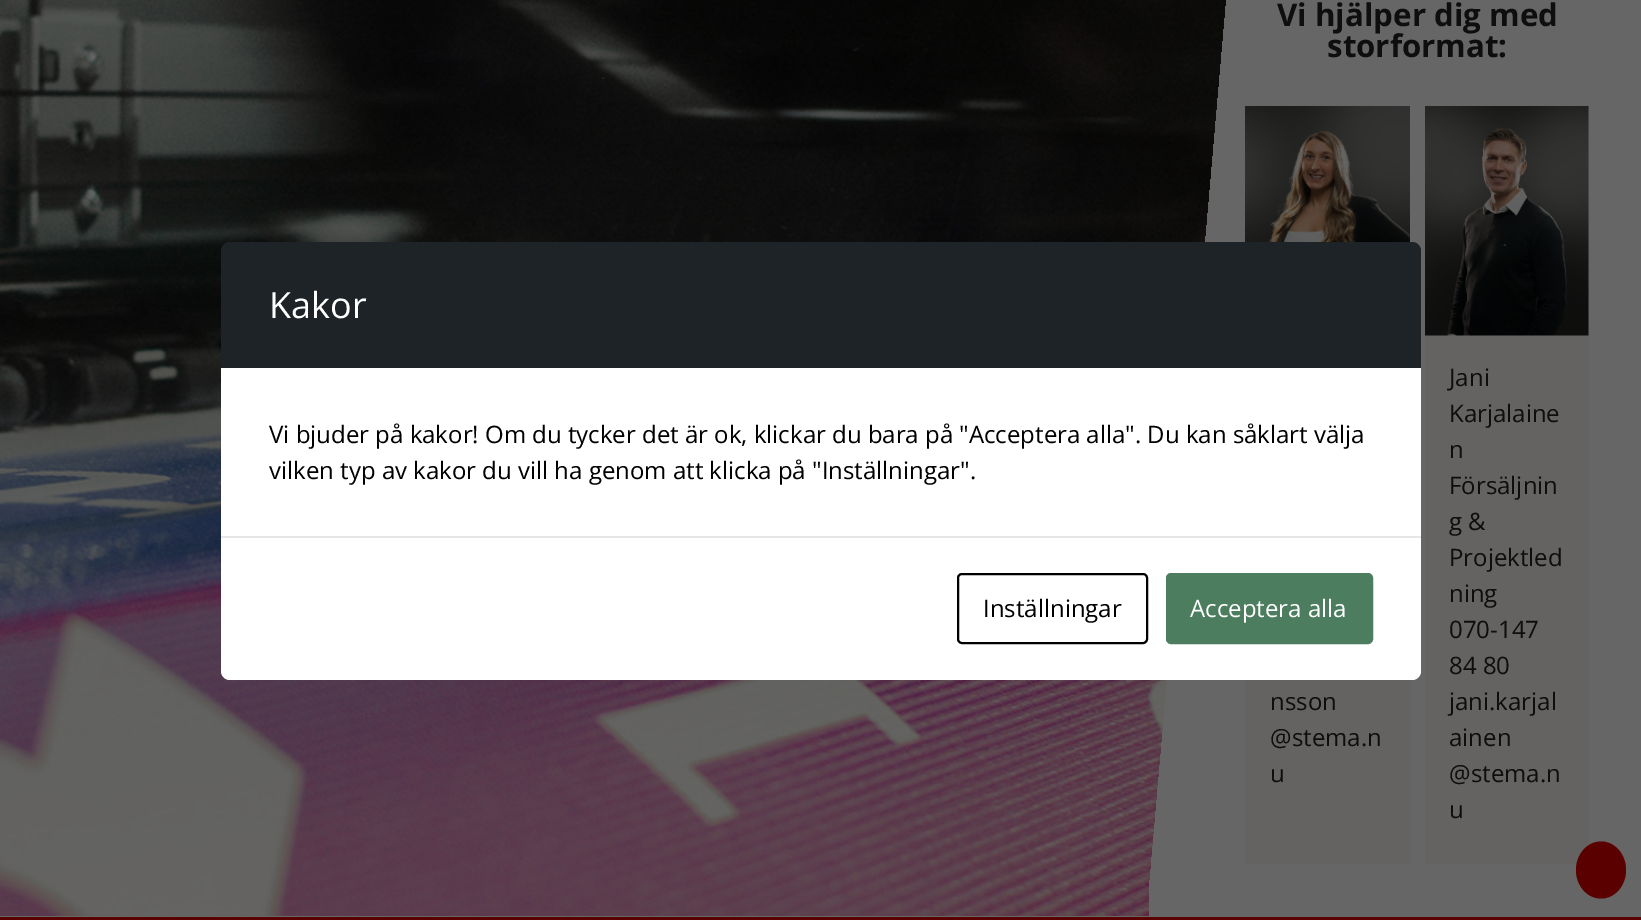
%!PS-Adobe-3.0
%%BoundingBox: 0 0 1641 920
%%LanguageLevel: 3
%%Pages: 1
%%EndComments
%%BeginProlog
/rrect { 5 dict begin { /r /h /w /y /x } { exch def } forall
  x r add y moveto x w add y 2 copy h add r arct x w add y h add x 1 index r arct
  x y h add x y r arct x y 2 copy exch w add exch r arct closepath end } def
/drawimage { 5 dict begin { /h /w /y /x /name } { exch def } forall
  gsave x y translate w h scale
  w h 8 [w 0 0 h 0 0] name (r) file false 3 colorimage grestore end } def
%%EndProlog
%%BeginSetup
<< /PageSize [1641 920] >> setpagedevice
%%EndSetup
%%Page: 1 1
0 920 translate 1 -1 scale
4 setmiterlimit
0.4 setgray
0 0 1641 920 rectfill
(images/1.raw) 0 0 1230 916 drawimage
0.114 0.137 0.153 setrgbcolor
newpath 230 242 moveto 1412 242 lineto 1417 242 1421 246 1421 251 curveto 1421 368 lineto 221 368 lineto 221 251 lineto 221 246 225 242 230 242 curveto closepath fill
1 setgray
221 368 1200 168 rectfill
newpath 221 536 moveto 1421 536 lineto 1421 671 lineto 1421 676 1417 680 1412 680 curveto 230 680 lineto 225 680 221 676 221 671 curveto closepath fill
0.902 setgray
221 536 1200 2 rectfill
0 setgray
2 setlinewidth
958 574 189 69 4 rrect stroke
0.294 0.49 0.369 setrgbcolor
1167 574 205 69 4 rrect gsave fill grestore
stroke
0.392 0.388 0.384 setrgbcolor
1245 680 165 184 rectfill
(images/2.raw) 1245 106 165 136 drawimage
1425 107 164 757 rectfill
(images/3.raw) 1425 106 164 230 drawimage
0.357 0 0 setrgbcolor
0 917 1641 3 rectfill
newpath 1601 841.5 moveto 1615 841.5 1626 854.5 1626 870 curveto 1626 885.5 1615 898.5 1601 898.5 curveto 1587 898.5 1576 885.5 1576 870 curveto 1576 854.5 1587 841.5 1601 841.5 curveto closepath fill
/OpenSans-Regular [36 0 0 -36 0 0] selectfont
1 setgray
269 318 moveto (Kakor) show
/OpenSans-Regular [24 0 0 -24 0 0] selectfont
0 setgray
269 443 moveto (Vi bjuder på kakor! Om du tycker det är ok, klickar du bara på "Acceptera alla". Du kan såklart välja) show
269 479 moveto (vilken typ av kakor du vill ha genom att klicka på "Inställningar".) show
983 617 moveto (Inställningar) show
1 setgray
1190 617 moveto (Acceptera alla) show
/OpenSans-Bold [31.25 0 0 -31.25 0 0] selectfont
0.055 setgray
1277 26 moveto (Vi hjälper dig med) show
1327 57 moveto (storformat:) show
/OpenSans-Regular [24 0 0 -24 0 0] selectfont
1270 710 moveto (nsson) show
1270 746 moveto (@stema.n) show
1270 782 moveto (u) show
1449 386 moveto (Jani) show
1449 422 moveto (Karjalaine) show
1449 458 moveto (n) show
1449 494 moveto (Försäljnin) show
1449 530 moveto (g &) show
1449 566 moveto (Projektled) show
1449 602 moveto (ning) show
1449 638 moveto (070-147) show
1449 674 moveto (84 80) show
1449 710 moveto (jani.karjal) show
1449 746 moveto (ainen) show
1449 782 moveto (@stema.n) show
1449 818 moveto (u) show
showpage
%%EOF
